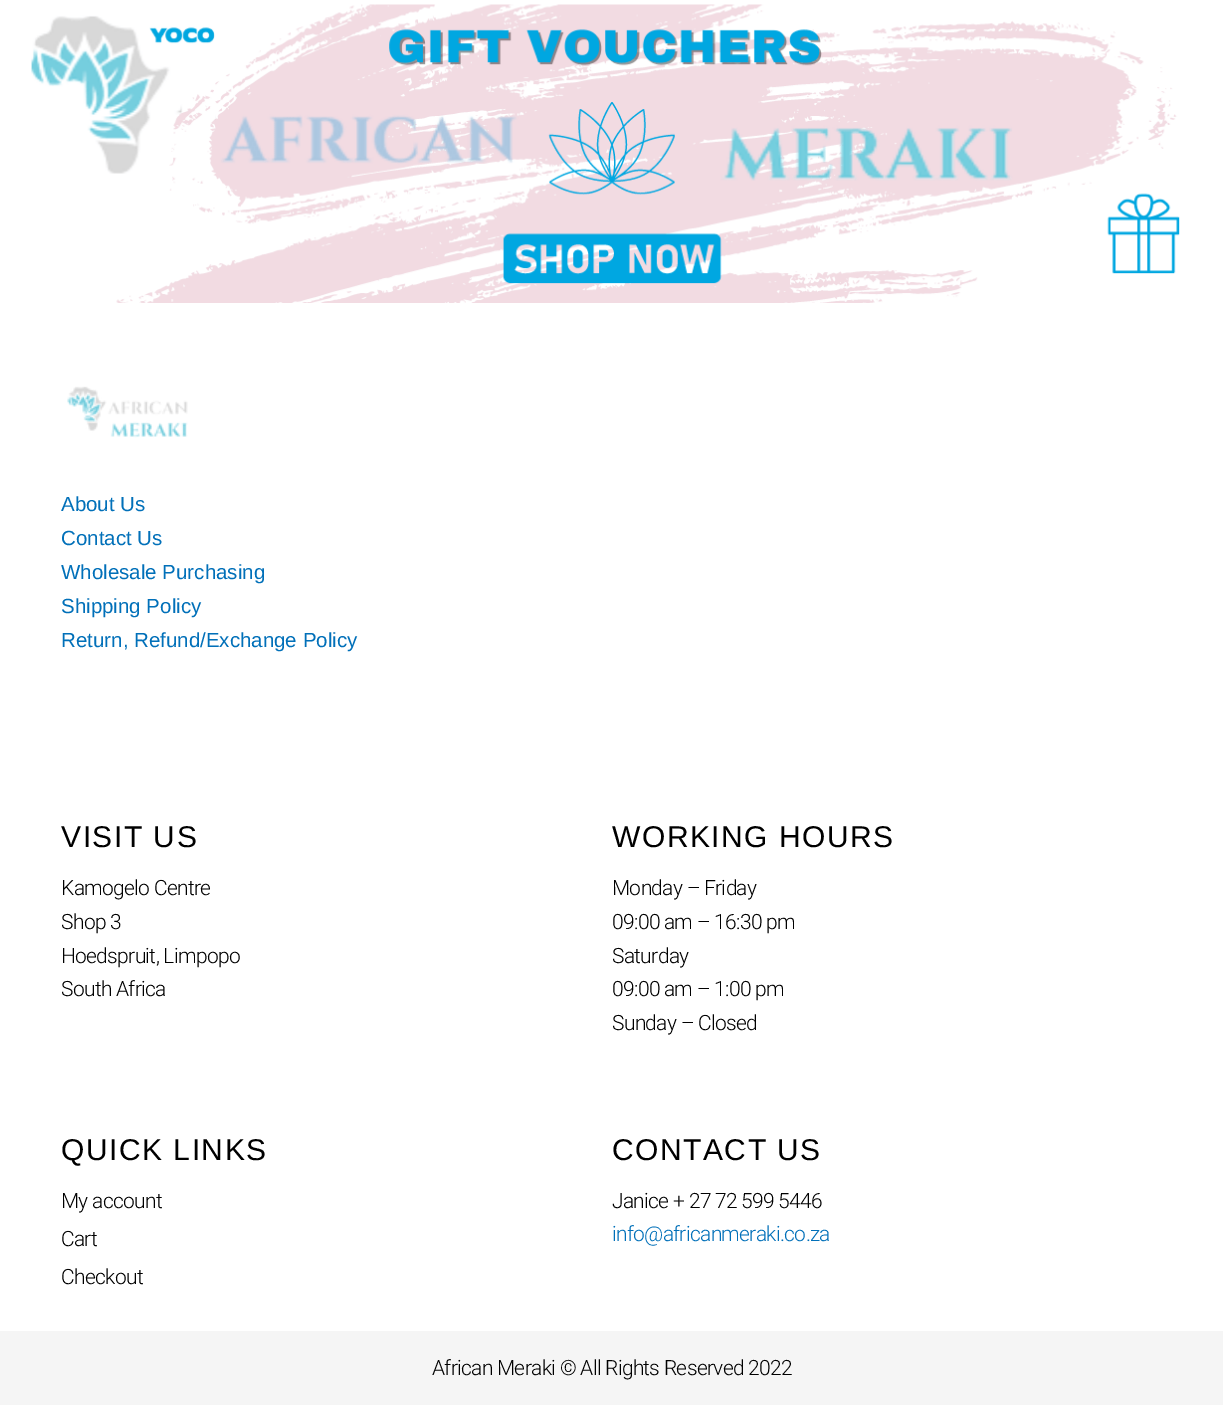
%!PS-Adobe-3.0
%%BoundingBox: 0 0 1223 1405
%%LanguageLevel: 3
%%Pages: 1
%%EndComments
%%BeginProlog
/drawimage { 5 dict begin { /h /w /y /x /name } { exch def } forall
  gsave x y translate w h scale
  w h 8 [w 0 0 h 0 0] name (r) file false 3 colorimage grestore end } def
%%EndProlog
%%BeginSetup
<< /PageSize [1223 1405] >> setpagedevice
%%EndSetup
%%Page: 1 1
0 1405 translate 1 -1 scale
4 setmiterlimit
1 setgray
0 0 1223 1405 rectfill
(images/1.raw) 31 4 1149 299 drawimage
(images/2.raw) 67 386 121 52 drawimage
0.961 setgray
0 1331 1223 74 rectfill
/LiberationSans-Regular [20.5 0 0 -20.5 0 0] selectfont
0.004 0.439 0.725 setrgbcolor
61 511 moveto (About Us) show
61 545 moveto (Contact Us) show
61 579 moveto (Wholesale Purchasing) show
61 613 moveto (Shipping Policy) show
61 647 moveto (Return, Refund/Exchange Policy) show
/LiberationSans-Regular [30 0 0 -30 0 0] selectfont
0 setgray
61 847 moveto 1.5 0 (VISIT US) ashow
/Roboto-Light [21 0 0 -21 0 0] selectfont
61 895 moveto -0.7 0 (Kamogelo Centre) ashow
61 929 moveto -0.7 0 (Shop 3) ashow
61 963 moveto -0.7 0 (Hoedspruit, Limpopo) ashow
61 996 moveto -0.7 0 (South Africa) ashow
/LiberationSans-Regular [30 0 0 -30 0 0] selectfont
612 847 moveto 1.5 0 (WORKING HOURS) ashow
/Roboto-Light [21 0 0 -21 0 0] selectfont
612 895 moveto -0.7 0 (Monday – Friday) ashow
612 929 moveto -0.7 0 (09:00 am – 16:30 pm) ashow
612 963 moveto -0.7 0 (Saturday) ashow
612 996 moveto -0.7 0 (09:00 am – 1:00 pm) ashow
612 1030 moveto -0.7 0 (Sunday – Closed) ashow
/LiberationSans-Regular [30 0 0 -30 0 0] selectfont
61 1160 moveto 1.5 0 (QUICK LINKS) ashow
/Roboto-Light [21 0 0 -21 0 0] selectfont
61 1208 moveto -0.7 0 (My account) ashow
61 1246 moveto -0.7 0 (Cart) ashow
61 1284 moveto -0.7 0 (Checkout) ashow
/LiberationSans-Regular [30 0 0 -30 0 0] selectfont
612 1160 moveto 1.5 0 (CONTACT US) ashow
/Roboto-Light [21 0 0 -21 0 0] selectfont
612 1208 moveto -0.7 0 (Janice + 27 72 599 5446) ashow
0.004 0.439 0.725 setrgbcolor
612 1241 moveto -0.7 0 (info@africanmeraki.co.za) ashow
0 setgray
432 1375 moveto -0.7 0 (African Meraki © All Rights Reserved 2022) ashow
showpage
%%EOF
